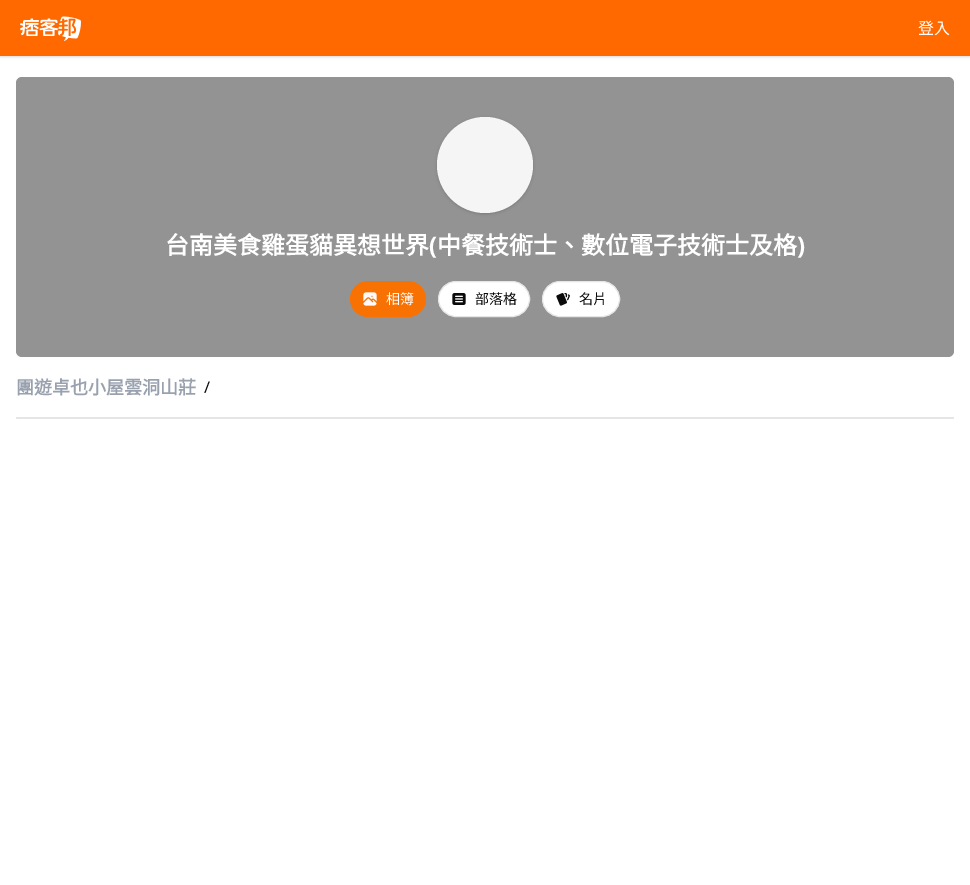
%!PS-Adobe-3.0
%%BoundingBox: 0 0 970 885
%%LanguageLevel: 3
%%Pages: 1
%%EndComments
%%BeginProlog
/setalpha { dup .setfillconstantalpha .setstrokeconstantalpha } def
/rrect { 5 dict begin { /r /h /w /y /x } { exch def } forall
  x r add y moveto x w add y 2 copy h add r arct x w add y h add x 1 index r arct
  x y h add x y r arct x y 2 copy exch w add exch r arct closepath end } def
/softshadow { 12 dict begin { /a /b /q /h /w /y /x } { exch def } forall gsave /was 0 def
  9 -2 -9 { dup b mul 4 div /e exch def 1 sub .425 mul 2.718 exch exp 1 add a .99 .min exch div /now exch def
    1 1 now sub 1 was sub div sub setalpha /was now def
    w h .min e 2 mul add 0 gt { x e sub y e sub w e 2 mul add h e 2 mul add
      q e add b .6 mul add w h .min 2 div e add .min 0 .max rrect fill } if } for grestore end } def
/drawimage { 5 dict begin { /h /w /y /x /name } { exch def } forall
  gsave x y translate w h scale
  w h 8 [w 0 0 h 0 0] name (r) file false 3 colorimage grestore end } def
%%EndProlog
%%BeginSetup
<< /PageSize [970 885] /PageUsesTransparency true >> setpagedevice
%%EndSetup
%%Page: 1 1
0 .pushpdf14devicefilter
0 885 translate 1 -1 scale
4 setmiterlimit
1 setgray
0 0 970 885 rectfill
0 setgray
1 2 968 54 0 1 0.1 softshadow
0 1 970 56 0 1.5 0.1 softshadow
1 0.412 0 setrgbcolor
0 0 970 56 rectfill
(images/1.raw) 20 16 61 25 drawimage
0.576 setgray
16 77 938 280 6 rrect fill
0 setgray
438 119 94 94 47 1 0.1 softshadow
437 118 96 96 48 1.5 0.1 softshadow
0.961 setgray
newpath 485 165 48 0 360 arc closepath fill
0.973 0.443 0.012 setrgbcolor
350 281 76 36 18 rrect fill
(images/2.raw) 363 292 14 14 drawimage
1 setgray
438.5 281.5 91 35 17.5 rrect gsave fill grestore
0.898 setgray
stroke
(images/3.raw) 452 293 14 12 drawimage
1 setgray
542.5 281.5 77 35 17.5 rrect gsave fill grestore
0.898 setgray
stroke
(images/4.raw) 556 293 14 13 drawimage
16 417 938 2 1 rrect fill
/NotoSansCJKTC-Regular [16 0 0 -16 0 0] selectfont
1 setgray
918 34 moveto (登入) show
/NotoSansCJKTC-Bold [24 0 0 -24 0 0] selectfont
165 254 moveto (台南美食雞蛋貓異想世界) show
/NotoSans-Bold [24 0 0 -24 0 0] selectfont
429 254 moveto (\() show
/NotoSansCJKTC-Bold [24 0 0 -24 0 0] selectfont
437 254 moveto (中餐技術士、數位電子技術士及格) show
/NotoSans-Bold [24 0 0 -24 0 0] selectfont
797 254 moveto (\)) show
/NotoSansCJKTC-Regular [14 0 0 -14 0 0] selectfont
386 304 moveto (相簿) show
0.039 setgray
475 304 moveto (部落格) show
579 304 moveto (名片) show
/NotoSansCJKTC-Bold [18 0 0 -18 0 0] selectfont
0.6 0.631 0.686 setrgbcolor
16 394 moveto (團遊卓也小屋雲洞山莊) show
/NotoSans-Regular [16 0 0 -16 0 0] selectfont
0.039 setgray
204 393 moveto (/) show
.poppdf14devicefilter showpage
%%EOF
